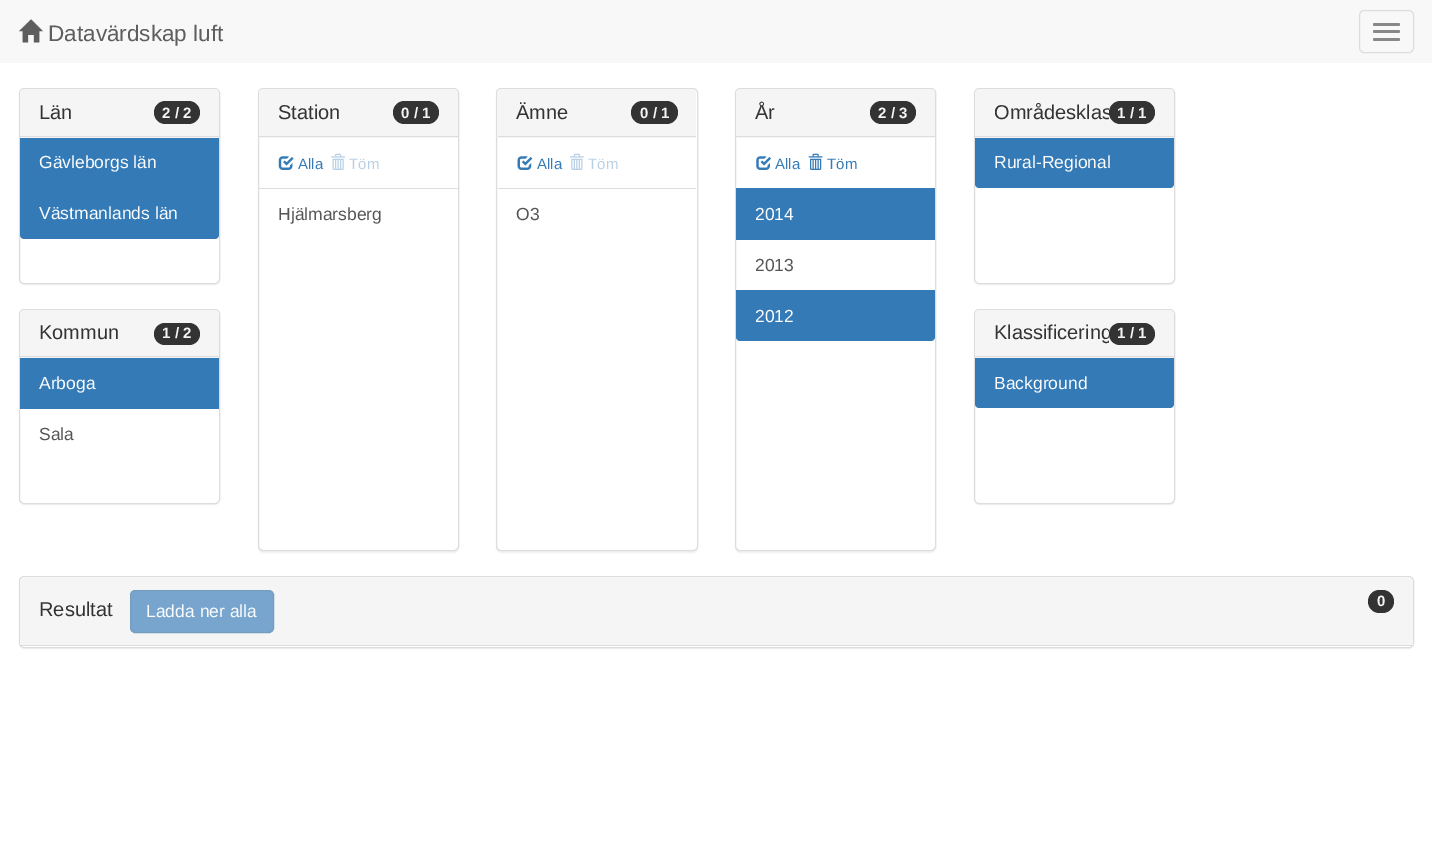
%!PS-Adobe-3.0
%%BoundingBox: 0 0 1432 843
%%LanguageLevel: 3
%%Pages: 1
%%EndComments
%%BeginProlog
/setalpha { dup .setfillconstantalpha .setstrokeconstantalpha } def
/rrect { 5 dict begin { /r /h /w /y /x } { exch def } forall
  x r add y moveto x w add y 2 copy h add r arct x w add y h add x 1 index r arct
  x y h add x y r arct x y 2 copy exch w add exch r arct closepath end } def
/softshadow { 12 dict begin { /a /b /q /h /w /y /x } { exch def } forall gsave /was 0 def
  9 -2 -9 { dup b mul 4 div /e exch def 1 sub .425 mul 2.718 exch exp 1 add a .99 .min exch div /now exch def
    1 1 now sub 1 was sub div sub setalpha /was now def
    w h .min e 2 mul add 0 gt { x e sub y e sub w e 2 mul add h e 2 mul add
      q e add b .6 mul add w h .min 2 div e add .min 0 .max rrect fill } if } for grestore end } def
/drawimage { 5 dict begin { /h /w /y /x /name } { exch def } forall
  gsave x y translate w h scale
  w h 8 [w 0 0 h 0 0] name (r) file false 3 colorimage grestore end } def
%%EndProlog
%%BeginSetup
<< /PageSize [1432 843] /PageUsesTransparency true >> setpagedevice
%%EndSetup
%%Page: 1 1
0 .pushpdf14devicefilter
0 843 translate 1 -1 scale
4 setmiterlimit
1 setgray
0 0 1432 843 rectfill
0.973 setgray
0 0 1432 63 rectfill
(images/1.raw) 19 19 24 24 drawimage
0.867 setgray
1359.5 10.5 54 42 4.5 rrect stroke
0.533 setgray
1373 23 27 3 1.5 rrect fill
1373 30 27 3 1.5 rrect fill
1373 38 27 3 1.5 rrect fill
0 setgray
19 89 201 196 5 0.5 0.05 softshadow
1 setgray
19.5 88.5 200 195 4.5 rrect gsave fill grestore
0.867 setgray
stroke
0.961 setgray
newpath 24 89 moveto 215 89 lineto 217 89 219 91 219 93 curveto 219 138 lineto 20 138 lineto 20 93 lineto 20 91 22 89 24 89 curveto closepath fill
0.867 setgray
20 136 199 1 rectfill
0.2 setgray
154 101 46 23 11.5 rrect fill
0.2 0.478 0.718 setrgbcolor
20 138 199 50 rectfill
newpath 20 188 moveto 219 188 lineto 219 235 lineto 219 237 217 239 215 239 curveto 24 239 lineto 22 239 20 237 20 235 curveto closepath fill
0 setgray
19 310 201 195 5 0.5 0.05 softshadow
1 setgray
19.5 309.5 200 194 4.5 rrect gsave fill grestore
0.867 setgray
stroke
0.961 setgray
newpath 24 310 moveto 215 310 lineto 217 310 219 312 219 314 curveto 219 358 lineto 20 358 lineto 20 314 lineto 20 312 22 310 24 310 curveto closepath fill
0.867 setgray
20 356 199 1 rectfill
0.2 setgray
154 323 46 22 11 rrect fill
0.2 0.478 0.718 setrgbcolor
20 358 199 51 rectfill
0 setgray
258 89 201 464 5 0.5 0.05 softshadow
1 setgray
258.5 88.5 200 462 4.5 rrect gsave fill grestore
0.867 setgray
stroke
0.961 setgray
newpath 263 89 moveto 454 89 lineto 456 89 458 91 458 93 curveto 458 138 lineto 259 138 lineto 259 93 lineto 259 91 261 89 263 89 curveto closepath fill
0.867 setgray
259 136 199 1 rectfill
0.2 setgray
393 101 46 23 11.5 rrect fill
(images/2.raw) 278 156 16 14 drawimage
(images/3.raw) 331 153 14 17 drawimage
0.867 setgray
259 188 199 1 rectfill
0 setgray
496 89 202 464 5 0.5 0.05 softshadow
1 setgray
496.5 88.5 201 462 4.5 rrect gsave fill grestore
0.867 setgray
stroke
0.961 setgray
newpath 502 89 moveto 692 89 lineto 694 89 696 91 696 93 curveto 696 138 lineto 498 138 lineto 498 93 lineto 498 91 500 89 502 89 curveto closepath fill
0.867 setgray
498 136 198 1 rectfill
0.2 setgray
631 101 47 23 11.5 rrect fill
(images/4.raw) 517 156 16 14 drawimage
(images/5.raw) 570 153 14 17 drawimage
0.867 setgray
498 188 198 1 rectfill
0 setgray
735 89 201 464 5 0.5 0.05 softshadow
1 setgray
735.5 88.5 200 462 4.5 rrect gsave fill grestore
0.867 setgray
stroke
0.961 setgray
newpath 740 89 moveto 931 89 lineto 933 89 935 91 935 93 curveto 935 138 lineto 736 138 lineto 736 93 lineto 736 91 738 89 740 89 curveto closepath fill
0.867 setgray
736 136 199 1 rectfill
0.2 setgray
870 101 46 23 11.5 rrect fill
(images/6.raw) 756 156 15 14 drawimage
(images/7.raw) 808 153 15 17 drawimage
0.2 0.478 0.718 setrgbcolor
736 188 199 52 rectfill
newpath 736 290 moveto 935 290 lineto 935 337 lineto 935 339 933 341 931 341 curveto 740 341 lineto 738 341 736 339 736 337 curveto closepath fill
0 setgray
974 89 201 196 5 0.5 0.05 softshadow
1 setgray
974.5 88.5 200 195 4.5 rrect gsave fill grestore
0.867 setgray
stroke
0.961 setgray
newpath 979 89 moveto 1170 89 lineto 1172 89 1174 91 1174 93 curveto 1174 138 lineto 975 138 lineto 975 93 lineto 975 91 977 89 979 89 curveto closepath fill
0.867 setgray
975 136 199 1 rectfill
0.2 setgray
1109 101 46 23 11.5 rrect fill
0.2 0.478 0.718 setrgbcolor
newpath 975 138 moveto 1174 138 lineto 1174 184 lineto 1174 186 1172 188 1170 188 curveto 979 188 lineto 977 188 975 186 975 184 curveto closepath fill
0 setgray
974 310 201 195 5 0.5 0.05 softshadow
1 setgray
974.5 309.5 200 194 4.5 rrect gsave fill grestore
0.867 setgray
stroke
0.961 setgray
newpath 979 310 moveto 1170 310 lineto 1172 310 1174 312 1174 314 curveto 1174 358 lineto 975 358 lineto 975 314 lineto 975 312 977 310 979 310 curveto closepath fill
0.867 setgray
975 356 199 1 rectfill
0.2 setgray
1109 323 46 22 11 rrect fill
0.2 0.478 0.718 setrgbcolor
newpath 975 358 moveto 1174 358 lineto 1174 404 lineto 1174 406 1172 408 1170 408 curveto 979 408 lineto 977 408 975 406 975 404 curveto closepath fill
0 setgray
19 578 1395 71 5 0.5 0.05 softshadow
1 setgray
19.5 576.5 1394 71 4.5 rrect gsave fill grestore
0.867 setgray
stroke
0.961 setgray
newpath 24 578 moveto 1409 578 lineto 1411 578 1413 580 1413 582 curveto 1413 646 lineto 20 646 lineto 20 582 lineto 20 580 22 578 24 578 curveto closepath fill
0.867 setgray
20 645 1393 1 rectfill
0.467 0.647 0.804 setrgbcolor
130.5 590.5 143 42 4.5 rrect gsave fill grestore
0.455 0.616 0.753 setrgbcolor
stroke
0.2 setgray
1368 590 26 23 11.5 rrect fill
/LiberationSans-Regular [22.5 0 0 -22.5 0 0] selectfont
0.369 setgray
48 41 moveto (Datavärdskap luft) show
/LiberationSans-Regular [20 0 0 -20 0 0] selectfont
0.2 setgray
39 119 moveto (Län) show
/LiberationSans-Bold [15 0 0 -15 0 0] selectfont
0.961 setgray
162 118 moveto (2 / 2) show
/LiberationSans-Regular [17.5 0 0 -17.5 0 0] selectfont
0.988 setgray
39 168 moveto (Gävleborgs län) show
39 219 moveto (Västmanlands län) show
/LiberationSans-Regular [20 0 0 -20 0 0] selectfont
0.2 setgray
39 339 moveto (Kommun) show
/LiberationSans-Bold [15 0 0 -15 0 0] selectfont
0.961 setgray
162 338 moveto (1 / 2) show
/LiberationSans-Regular [17.5 0 0 -17.5 0 0] selectfont
0.988 setgray
39 389 moveto (Arboga) show
0.333 setgray
39 440 moveto (Sala) show
/LiberationSans-Regular [20 0 0 -20 0 0] selectfont
0.2 setgray
278 119 moveto (Station) show
/LiberationSans-Bold [15 0 0 -15 0 0] selectfont
0.961 setgray
401 118 moveto (0 / 1) show
/LiberationSans-Regular [15 0 0 -15 0 0] selectfont
0.2 0.478 0.718 setrgbcolor
298 169 moveto (Alla) show
0.722 0.816 0.902 setrgbcolor
349 169 moveto (Töm) show
/LiberationSans-Regular [17.5 0 0 -17.5 0 0] selectfont
0.333 setgray
278 220 moveto (Hjälmarsberg) show
/LiberationSans-Regular [20 0 0 -20 0 0] selectfont
0.2 setgray
516 119 moveto (Ämne) show
/LiberationSans-Bold [15 0 0 -15 0 0] selectfont
0.961 setgray
640 118 moveto (0 / 1) show
/LiberationSans-Regular [15 0 0 -15 0 0] selectfont
0.2 0.478 0.718 setrgbcolor
537 169 moveto (Alla) show
0.722 0.816 0.902 setrgbcolor
588 169 moveto (Töm) show
/LiberationSans-Regular [17.5 0 0 -17.5 0 0] selectfont
0.333 setgray
516 220 moveto (O3) show
/LiberationSans-Regular [20 0 0 -20 0 0] selectfont
0.2 setgray
755 119 moveto (År) show
/LiberationSans-Bold [15 0 0 -15 0 0] selectfont
0.961 setgray
878 118 moveto (2 / 3) show
/LiberationSans-Regular [15 0 0 -15 0 0] selectfont
0.2 0.478 0.718 setrgbcolor
775 169 moveto (Alla) show
827 169 moveto (Töm) show
/LiberationSans-Regular [17.5 0 0 -17.5 0 0] selectfont
0.988 setgray
755 220 moveto (2014) show
0.333 setgray
755 271 moveto (2013) show
0.988 setgray
755 322 moveto (2012) show
gsave
994 101 115 23 rectclip
/LiberationSans-Regular [20 0 0 -20 0 0] selectfont
0.2 setgray
994 119 moveto (Områdesklas) show
grestore
/LiberationSans-Bold [15 0 0 -15 0 0] selectfont
0.961 setgray
1117 118 moveto (1 / 1) show
/LiberationSans-Regular [17.5 0 0 -17.5 0 0] selectfont
0.988 setgray
994 168 moveto (Rural-Regional) show
gsave
994 323 115 21 rectclip
/LiberationSans-Regular [20 0 0 -20 0 0] selectfont
0.2 setgray
994 339 moveto (Klassificering) show
grestore
/LiberationSans-Bold [15 0 0 -15 0 0] selectfont
0.961 setgray
1117 338 moveto (1 / 1) show
/LiberationSans-Regular [17.5 0 0 -17.5 0 0] selectfont
0.988 setgray
994 389 moveto (Background) show
/LiberationSans-Regular [20 0 0 -20 0 0] selectfont
0.2 setgray
39 616 moveto (Resultat) show
/LiberationSans-Regular [17.5 0 0 -17.5 0 0] selectfont
0.988 setgray
146 617 moveto (Ladda ner alla) show
/LiberationSans-Bold [15 0 0 -15 0 0] selectfont
0.961 setgray
1377 606 moveto (0) show
.poppdf14devicefilter showpage
%%EOF
